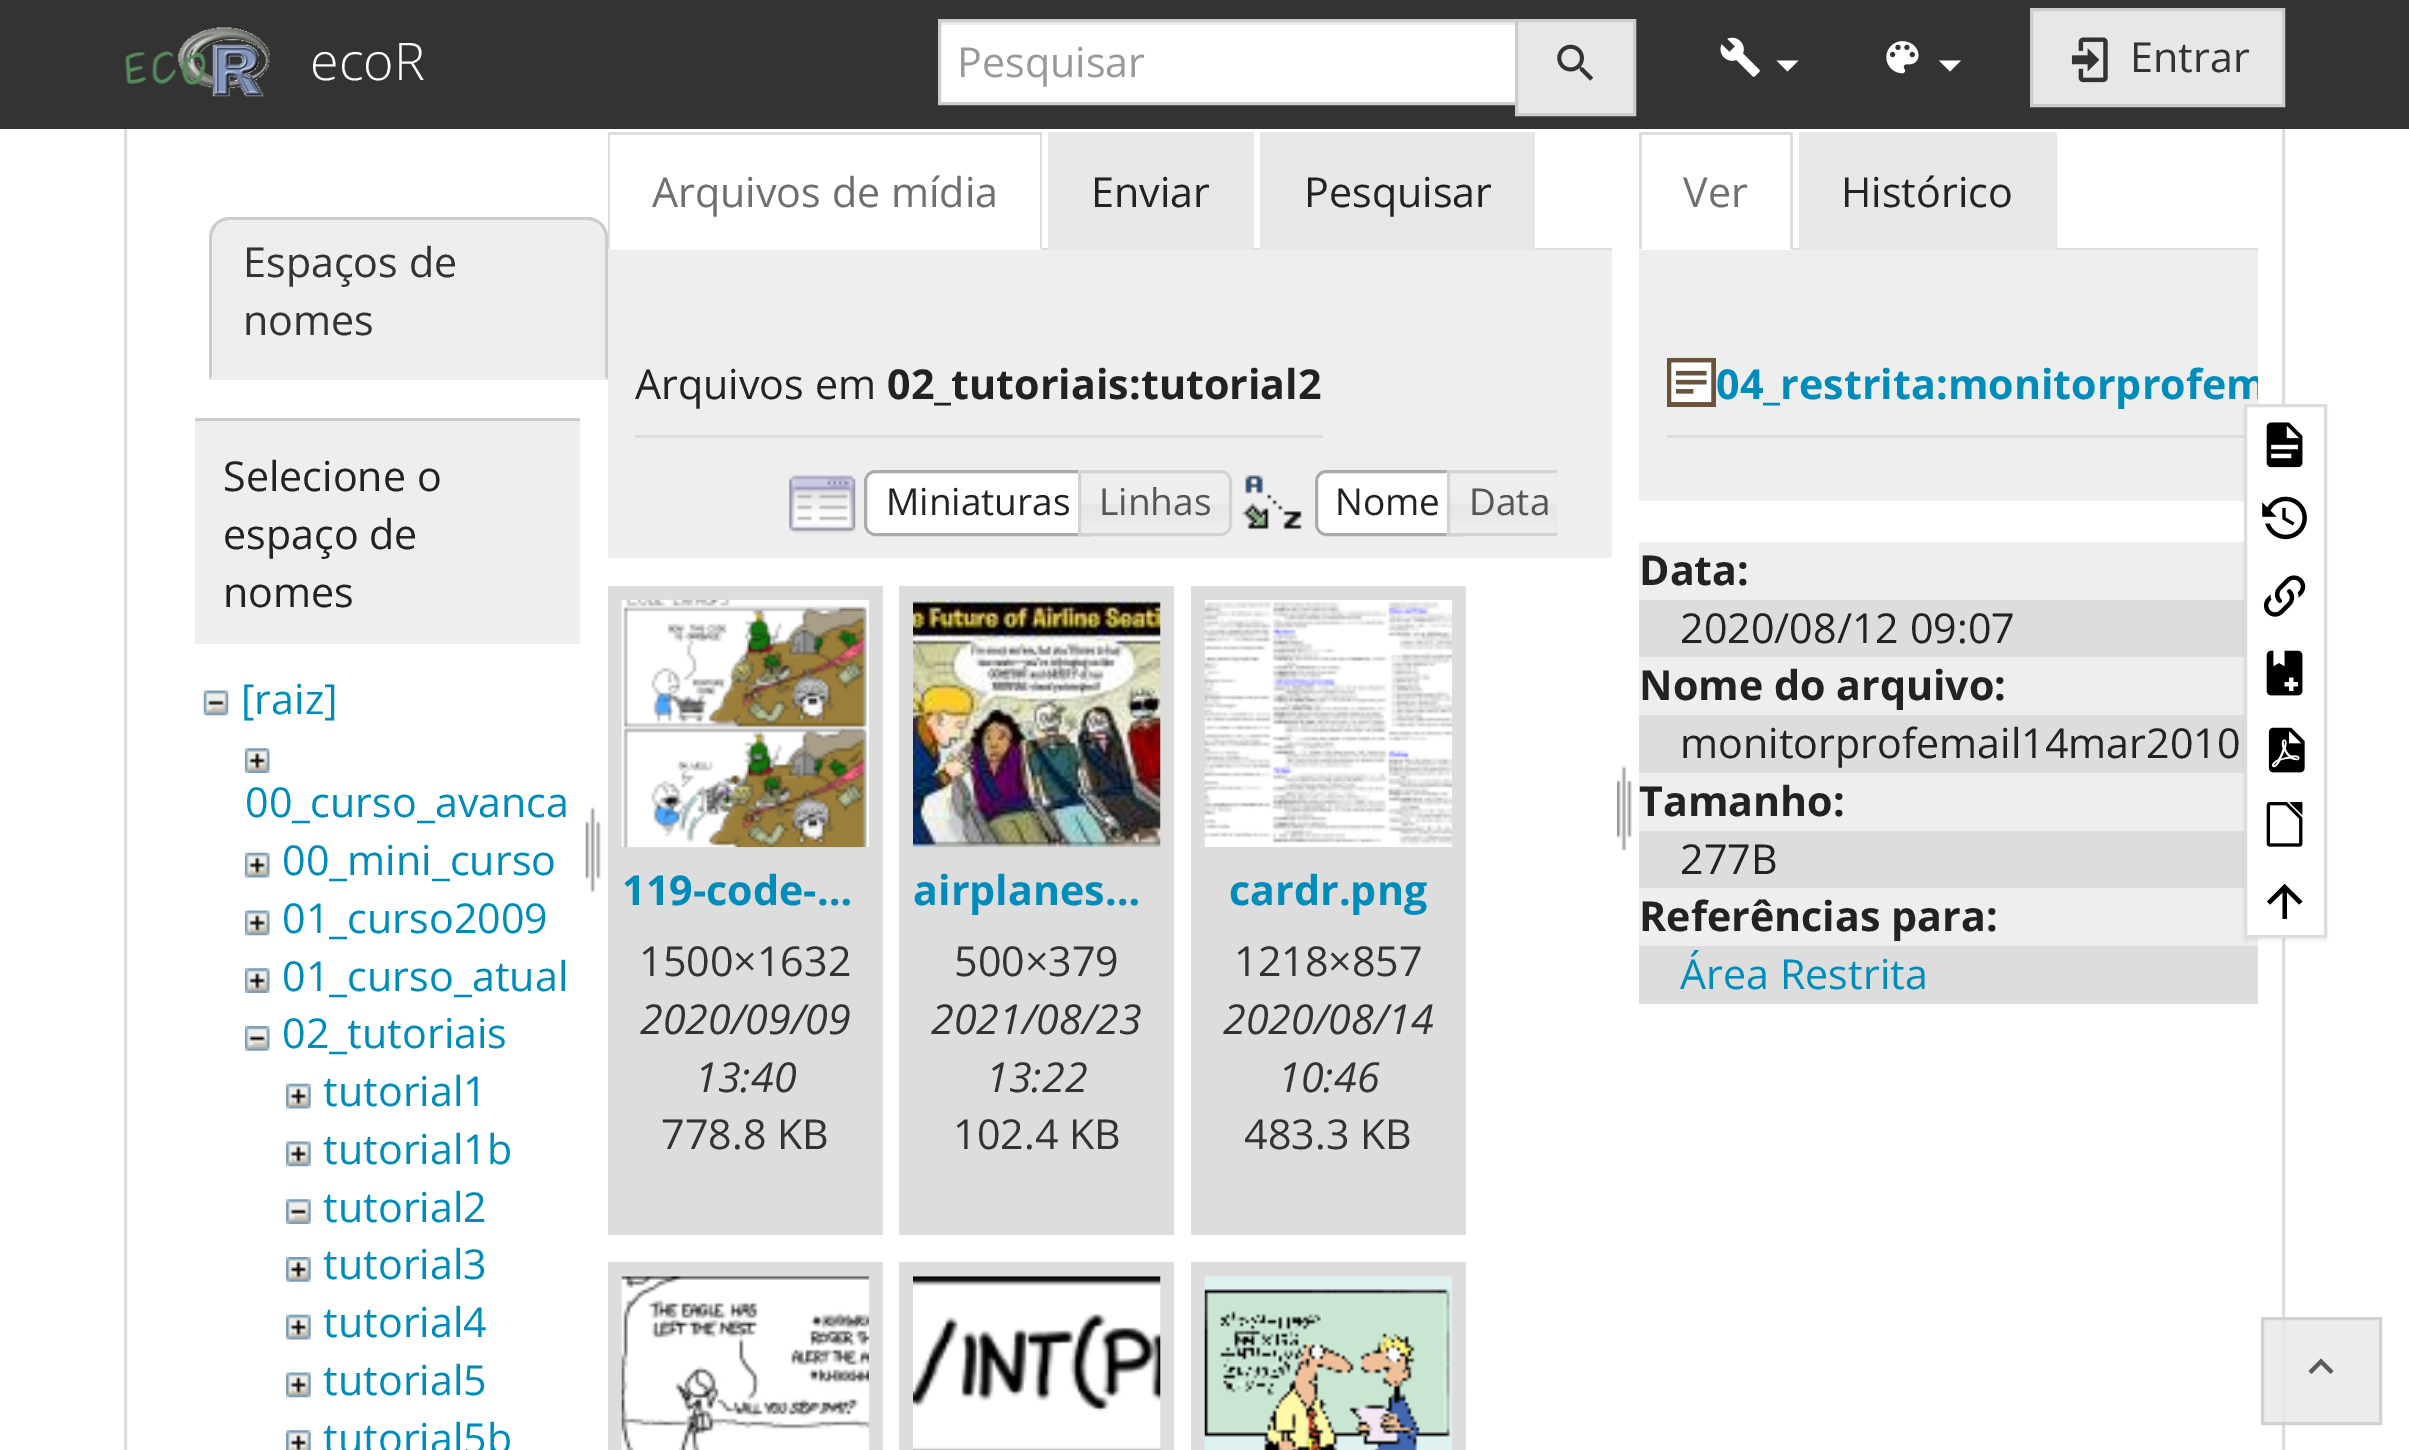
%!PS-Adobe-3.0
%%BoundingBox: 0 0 2409 1450
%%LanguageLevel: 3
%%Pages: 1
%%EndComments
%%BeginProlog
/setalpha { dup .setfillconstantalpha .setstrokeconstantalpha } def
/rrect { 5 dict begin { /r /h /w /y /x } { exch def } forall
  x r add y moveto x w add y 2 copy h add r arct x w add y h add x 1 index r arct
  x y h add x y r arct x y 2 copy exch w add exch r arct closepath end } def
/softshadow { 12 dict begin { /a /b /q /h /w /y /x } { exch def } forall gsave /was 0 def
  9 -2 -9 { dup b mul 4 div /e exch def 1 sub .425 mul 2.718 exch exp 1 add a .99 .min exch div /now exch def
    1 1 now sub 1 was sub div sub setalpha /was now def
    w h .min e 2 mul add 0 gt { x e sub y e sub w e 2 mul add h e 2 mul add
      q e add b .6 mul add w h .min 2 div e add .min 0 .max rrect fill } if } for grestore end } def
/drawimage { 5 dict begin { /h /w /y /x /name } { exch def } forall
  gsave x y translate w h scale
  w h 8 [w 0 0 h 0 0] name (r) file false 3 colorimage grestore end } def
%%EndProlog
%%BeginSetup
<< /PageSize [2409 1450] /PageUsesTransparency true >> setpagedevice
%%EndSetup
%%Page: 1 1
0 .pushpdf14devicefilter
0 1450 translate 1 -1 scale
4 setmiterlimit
1 setgray
0 0 2409 1450 rectfill
0.867 setgray
3 setlinewidth
125.5 -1.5 2158 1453 rectstroke
0.2 setgray
0 0 2409 129 rectfill
(images/1.raw) 125 27 145 70 drawimage
1 setgray
941 25 574 77 rectfill
0.925 setgray
941 22 574 3 rectfill
0.8 setgray
939.5 20.5 577 83 rectstroke
0.906 setgray
newpath 1516.5 20.5 moveto 1634.5 20.5 lineto 1634.5 114.5 lineto 1516.5 114.5 lineto closepath gsave fill grestore
0.8 setgray
stroke
(images/2.raw) 1557 44 37 37 drawimage
(images/3.raw) 1720 37 40 40 drawimage
1 setgray
newpath 1776.5 60.5 moveto 1798.5 60.5 lineto 1787.5 71.5 lineto closepath fill
(images/4.raw) 1886 41 33 33 drawimage
newpath 1939 60.5 moveto 1961 60.5 lineto 1950 71.5 lineto closepath fill
0.906 setgray
newpath 2031.5 9.5 moveto 2283.5 9.5 lineto 2283.5 105.5 lineto 2031.5 105.5 lineto closepath gsave fill grestore
0.8 setgray
stroke
(images/5.raw) 2071 37 37 46 drawimage
0.933 setgray
newpath 231 217 moveto 586 217 lineto 598 217 608 227 608 239 curveto 608 380 lineto 209 380 lineto 209 239 lineto 209 227 219 217 231 217 curveto closepath fill
0.8 setgray
newpath 230 220 moveto 225 220 220 222 217 225 curveto 215 223 lineto 218 220 222 218 227 217 curveto 590 217 lineto 595 218 599 220 602 223 curveto 600 225 lineto 596 222 592 220 587 220 curveto closepath fill
newpath 602 223 moveto 605 226 607 230 608 235 curveto 608 380 lineto 605 377 lineto 605 238 lineto 605 233 603 228 600 225 curveto closepath fill
0.933 setgray
newpath 608 380 moveto 605 377 lineto 212 377 lineto 212 376 lineto 209 380 lineto closepath fill
0.8 setgray
newpath 209 380 moveto 212 376 lineto 212 238 lineto 212 233 214 229 217 225 curveto 215 223 lineto 211 227 209 232 209 238 curveto closepath fill
0.933 setgray
195 421 385 223 rectfill
0.8 setgray
195 418 385 3 rectfill
(images/6.raw) 203 690 26 26 drawimage
(images/7.raw) 244 748 26 25 drawimage
(images/8.raw) 244 852 26 26 drawimage
(images/9.raw) 244 910 26 26 drawimage
(images/7.raw) 244 968 26 25 drawimage
(images/10.raw) 244 1026 26 25 drawimage
(images/11.raw) 286 1083 25 26 drawimage
(images/12.raw) 286 1141 25 26 drawimage
(images/13.raw) 286 1199 25 25 drawimage
(images/14.raw) 286 1257 25 25 drawimage
(images/11.raw) 286 1314 25 26 drawimage
(images/12.raw) 286 1372 25 26 drawimage
(images/15.raw) 286 1430 25 20 drawimage
(images/16.raw) 585 806 16 87 drawimage
0.867 setgray
1042 248 570 2 rectfill
608 132 434 3 rectfill
newpath 1042 132 moveto 1042 250 lineto 1040 248 lineto 1040 135 lineto closepath fill
newpath 608 250 moveto 608 132 lineto 610 135 lineto 610 248 lineto closepath fill
0.906 setgray
1048 132 206 118 rectfill
1260 132 275 118 rectfill
0.933 setgray
608 250 1004 308 rectfill
0.867 setgray
635 435 688 3 rectfill
(images/17.raw) 789 475 67 59 drawimage
1 setgray
newpath 875 470 moveto 1092 470 lineto 1092 536 lineto 875 536 lineto 869 536 864 531 864 525 curveto 864 481 lineto 864 475 869 470 875 470 curveto closepath fill
(images/18.raw) 863 472 10 64 drawimage
0.667 setgray
newpath 875 471.5 moveto 1090.5 471.5 lineto 1090.5 534.5 lineto 875 534.5 lineto 870 534.5 865.5 530 865.5 525 curveto 865.5 481 lineto 865.5 476 870 471.5 875 471.5 curveto closepath stroke
(images/19.raw) 1081 471 151 65 drawimage
0.827 setgray
newpath 1079.5 471.5 moveto 1221 471.5 lineto 1226 471.5 1230.5 476 1230.5 481 curveto 1230.5 525 lineto 1230.5 530 1226 534.5 1221 534.5 curveto 1079.5 534.5 lineto closepath stroke
(images/20.raw) 1242 475 60 55 drawimage
1 setgray
newpath 1326 470 moveto 1463 470 lineto 1463 536 lineto 1326 536 lineto 1320 536 1315 531 1315 525 curveto 1315 481 lineto 1315 475 1320 470 1326 470 curveto closepath fill
(images/18.raw) 1314 472 10 64 drawimage
0.667 setgray
newpath 1326 471.5 moveto 1461.5 471.5 lineto 1461.5 534.5 lineto 1326 534.5 lineto 1321 534.5 1316.5 530 1316.5 525 curveto 1316.5 481 lineto 1316.5 476 1321 471.5 1326 471.5 curveto closepath stroke
0.902 setgray
1556 473 1 60 rectfill
(images/21.raw) 1446 471 111 65 drawimage
gsave
767 470 790 66 rectclip
0.827 setgray
newpath 1448.5 471.5 moveto 1559 471.5 lineto 1564 471.5 1568.5 476 1568.5 481 curveto 1568.5 525 lineto 1568.5 530 1564 534.5 1559 534.5 curveto 1448.5 534.5 lineto closepath stroke
grestore
(images/22.raw) 1617 765 15 86 drawimage
0.867 setgray
608 586 275 649 rectfill
(images/23.raw) 621 599 248 249 drawimage
899 586 275 649 rectfill
(images/24.raw) 913 600 248 248 drawimage
1191 586 275 649 rectfill
(images/25.raw) 1204 600 248 247 drawimage
608 1262 275 188 rectfill
(images/26.raw) 621 1276 248 174 drawimage
899 1262 275 188 rectfill
(images/27.raw) 913 1276 248 174 drawimage
1191 1262 275 188 rectfill
(images/28.raw) 1204 1276 248 174 drawimage
1793 248 465 2 rectfill
1639 132 154 3 rectfill
newpath 1793 132 moveto 1793 250 lineto 1790 248 lineto 1790 135 lineto closepath fill
newpath 1639 250 moveto 1639 132 lineto 1642 135 lineto 1642 248 lineto closepath fill
0.906 setgray
1799 132 258 118 rectfill
0.933 setgray
1639 250 619 251 rectfill
0.867 setgray
1667 435 577 3 rectfill
(images/29.raw) 1667 358 49 49 drawimage
0.933 setgray
1639 542 605 58 rectfill
0.867 setgray
1639 600 605 57 rectfill
0.933 setgray
1639 657 605 58 rectfill
0.867 setgray
1639 715 605 58 rectfill
0.933 setgray
1639 773 605 58 rectfill
0.867 setgray
1639 831 605 57 rectfill
0.933 setgray
1639 888 619 58 rectfill
0.867 setgray
1639 946 619 58 rectfill
0 setgray
2244 407 83 534 0 1.5 0.05 softshadow
0.8 setalpha
0.906 setgray
2261 1317 121 108 rectfill
0.8 setgray
2262.5 1318.5 118 105 rectstroke
1 setalpha
0.361 setgray
newpath 2311.5 1374 moveto 2321 1364.5 lineto 2330.5 1374 lineto 2333.5 1371 lineto 2321 1358.5 lineto 2308.5 1371 lineto closepath fill
/OpenSans-Light [52 0 0 -52 0 0] selectfont
1 setgray
310 80 moveto (ecoR) show
/OpenSans-Regular [41.25 0 0 -41.25 0 0] selectfont
0.6 setgray
957 77 moveto (Pesquisar) show
0.2 setgray
2130 72 moveto (Entrar) show
243 277 moveto (Espaços de) show
243 335 moveto (nomes) show
0.133 setgray
223 491 moveto (Selecione o) show
223 549 moveto (espaço de) show
223 607 moveto (nomes) show
0 0.549 0.729 setrgbcolor
241 714 moveto ([raiz]) show
245 817 moveto (00_curso_avanca) show
282 875 moveto (00_mini_curso) show
282 933 moveto (01_curso2009) show
282 991 moveto (01_curso_atual) show
282 1048 moveto (02_tutoriais) show
323 1106 moveto (tutorial1) show
323 1164 moveto (tutorial1b) show
323 1222 moveto (tutorial2) show
323 1279 moveto (tutorial3) show
323 1337 moveto (tutorial4) show
323 1395 moveto (tutorial5) show
323 1453 moveto (tutorial5b) show
0.435 setgray
652 207 moveto (Arquivos de mídia) show
0.133 setgray
1091 207 moveto (Enviar) show
1304 207 moveto (Pesquisar) show
635 399 moveto (Arquivos em) show
/OpenSans-Bold [41.25 0 0 -41.25 0 0] selectfont
887 399 moveto (02_tutoriais:tutorial2) show
/OpenSans-Regular [37 0 0 -37 0 0] selectfont
886 515 moveto (Miniaturas) show
0.333 setgray
1099 515 moveto (Linhas) show
0.133 setgray
1335 515 moveto (Nome) show
0.333 setgray
1469 515 moveto (Data) show
/OpenSans-Bold [41.25 0 0 -41.25 0 0] selectfont
0 0.549 0.729 setrgbcolor
622 905 moveto (119-code-…) show
/OpenSans-Regular [41.25 0 0 -41.25 0 0] selectfont
0.2 setgray
639 976 moveto (1500×1632) show
/OpenSans-Italic [41.25 0 0 -41.25 0 0] selectfont
640 1034 moveto (2020/09/09) show
695 1092 moveto (13:40) show
/OpenSans-Regular [41.25 0 0 -41.25 0 0] selectfont
661 1149 moveto (778.8 KB) show
/OpenSans-Bold [41.25 0 0 -41.25 0 0] selectfont
0 0.549 0.729 setrgbcolor
913 905 moveto (airplanes…) show
/OpenSans-Regular [41.25 0 0 -41.25 0 0] selectfont
0.2 setgray
954 976 moveto (500×379) show
/OpenSans-Italic [41.25 0 0 -41.25 0 0] selectfont
931 1034 moveto (2021/08/23) show
986 1092 moveto (13:22) show
/OpenSans-Regular [41.25 0 0 -41.25 0 0] selectfont
953 1149 moveto (102.4 KB) show
/OpenSans-Bold [41.25 0 0 -41.25 0 0] selectfont
0 0.549 0.729 setrgbcolor
1229 905 moveto (cardr.png) show
/OpenSans-Regular [41.25 0 0 -41.25 0 0] selectfont
0.2 setgray
1234 976 moveto (1218×857) show
/OpenSans-Italic [41.25 0 0 -41.25 0 0] selectfont
1223 1034 moveto (2020/08/14) show
1278 1092 moveto (10:46) show
/OpenSans-Regular [41.25 0 0 -41.25 0 0] selectfont
1244 1149 moveto (483.3 KB) show
0.435 setgray
1683 207 moveto (Ver) show
0.133 setgray
1841 207 moveto (Histórico) show
gsave
1639 250 619 251 rectclip
/OpenSans-Bold [41.25 0 0 -41.25 0 0] selectfont
0 0.549 0.729 setrgbcolor
1716 399 moveto (04_restrita:monitorprofem) show
grestore
/OpenSans-Bold [41.25 0 0 -41.25 0 0] selectfont
1639 585 moveto (Data:) show
/OpenSans-Regular [41.25 0 0 -41.25 0 0] selectfont
1680 643 moveto (2020/08/12 09:07) show
/OpenSans-Bold [41.25 0 0 -41.25 0 0] selectfont
1639 700 moveto (Nome do arquivo:) show
/OpenSans-Regular [41.25 0 0 -41.25 0 0] selectfont
1680 758 moveto (monitorprofemail14mar2010) show
/OpenSans-Bold [41.25 0 0 -41.25 0 0] selectfont
1639 816 moveto (Tamanho:) show
/OpenSans-Regular [41.25 0 0 -41.25 0 0] selectfont
1680 874 moveto (277B) show
/OpenSans-Bold [41.25 0 0 -41.25 0 0] selectfont
1639 931 moveto (Referências para:) show
/OpenSans-Regular [41.25 0 0 -41.25 0 0] selectfont
0 0.549 0.729 setrgbcolor
1680 989 moveto (Área Restrita) show
1 setgray
newpath 2245.5 405.5 moveto 2325.5 405.5 lineto 2325.5 936.5 lineto 2245.5 936.5 lineto closepath gsave fill grestore
0.867 setgray
stroke
(images/30.raw) 2266 422 37 46 drawimage
(images/31.raw) 2262 496 45 44 drawimage
(images/32.raw) 2263 575 43 42 drawimage
(images/33.raw) 2266 650 37 46 drawimage
(images/34.raw) 2268 727 37 46 drawimage
(images/35.raw) 2266 802 37 45 drawimage
0 setgray
newpath 2287 919 moveto 2282.5 919 lineto 2282.5 892.5 lineto 2270 904.5 lineto 2267 901.5 lineto 2284.5 884 lineto 2302.5 901.5 lineto 2299 904.5 lineto 2287 892.5 lineto closepath fill
.poppdf14devicefilter showpage
%%EOF
